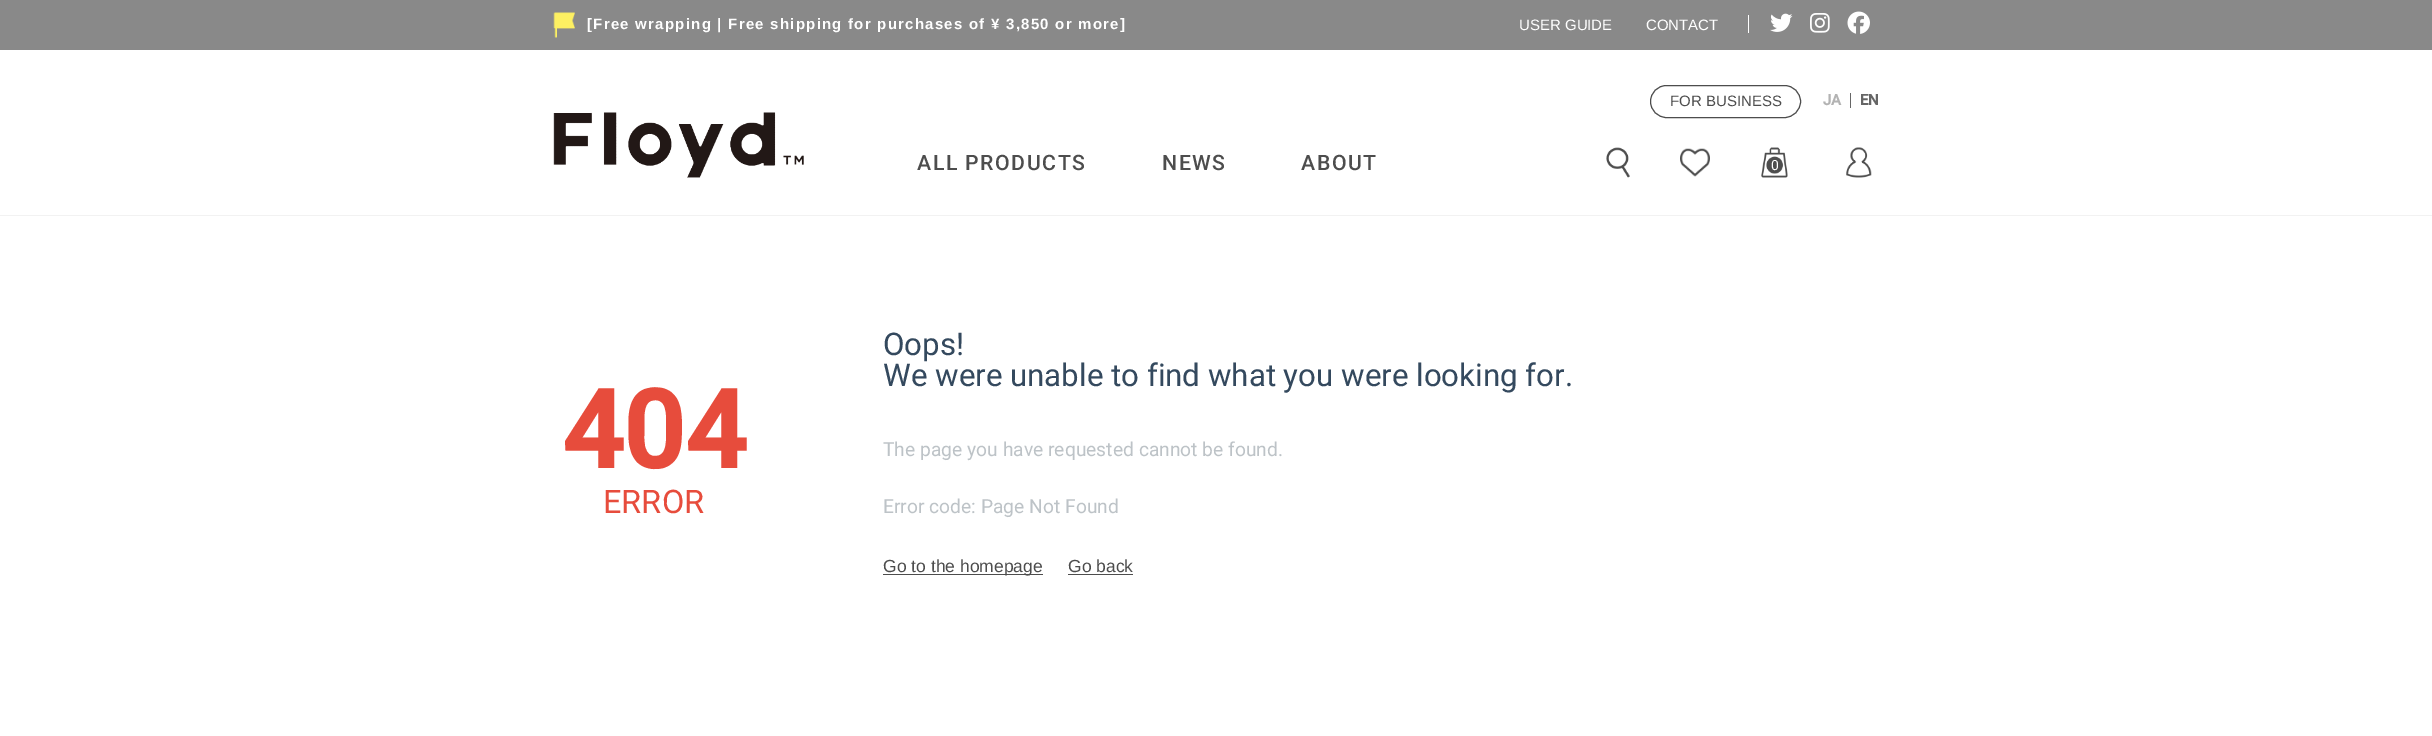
%!PS-Adobe-3.0
%%BoundingBox: 0 0 2432 736
%%LanguageLevel: 3
%%Pages: 1
%%EndComments
%%BeginProlog
/rrect { 5 dict begin { /r /h /w /y /x } { exch def } forall
  x r add y moveto x w add y 2 copy h add r arct x w add y h add x 1 index r arct
  x y h add x y r arct x y 2 copy exch w add exch r arct closepath end } def
/drawimage { 5 dict begin { /h /w /y /x /name } { exch def } forall
  gsave x y translate w h scale
  w h 8 [w 0 0 h 0 0] name (r) file false 3 colorimage grestore end } def
%%EndProlog
%%BeginSetup
<< /PageSize [2432 736] >> setpagedevice
%%EndSetup
%%Page: 1 1
0 736 translate 1 -1 scale
4 setmiterlimit
1 setgray
0 0 2432 736 rectfill
0.949 setgray
0 215 2432 1 rectfill
0.537 setgray
0 0 2432 50 rectfill
(images/1.raw) 553 12 22 26 drawimage
1 setgray
1748 15 1 18 rectfill
(images/2.raw) 1770 13 23 19 drawimage
(images/3.raw) 1810 13 20 20 drawimage
(images/4.raw) 1847 11 23 23 drawimage
(images/5.raw) 553 112 251 66 drawimage
0.302 setgray
1650.5 85.5 150 32 16 rrect stroke
0.4 setgray
1850 93 1 15 rectfill
(images/6.raw) 1606 147 24 31 drawimage
(images/7.raw) 1680 148 30 29 drawimage
(images/8.raw) 1761 147 27 31 drawimage
(images/9.raw) 1846 147 26 31 drawimage
0.302 setgray
883 574 160 1 rectfill
1068 574 65 1 rectfill
/LiberationSans-Bold [15 0 0 -15 0 0] selectfont
1 setgray
587 29 moveto 1.25 0 ([Free wrapping | Free shipping for purchases of ¥ 3,850 or more]) ashow
/LiberationSans-Regular [15 0 0 -15 0 0] selectfont
1519 30 moveto (USER GUIDE) show
1646 30 moveto (CONTACT) show
0.302 setgray
1670 106 moveto (FOR BUSINESS) show
/Roboto-Bold [15 0 0 -15 0 0] selectfont
0.702 setgray
1823 105 moveto (JA) show
0.4 setgray
1860 105 moveto (EN) show
/Roboto-Medium [21.25 0 0 -21.25 0 0] selectfont
0.302 setgray
917 170 moveto 1.5 0 (ALL PRODUCTS) ashow
1162 170 moveto 1.5 0 (NEWS) ashow
1301 170 moveto 1.5 0 (ABOUT) ashow
/Roboto-Regular [14 0 0 -14 0 0] selectfont
1 setgray
1771 170 moveto (0) show
/Roboto-Bold [108 0 0 -108 0 0] selectfont
0.906 0.298 0.235 setrgbcolor
562 468 moveto (404) show
/Roboto-Regular [32.5 0 0 -32.5 0 0] selectfont
603 513 moveto (ERROR) show
/Roboto-Regular [31.25 0 0 -31.25 0 0] selectfont
0.204 0.286 0.369 setrgbcolor
883 355 moveto (Oops!) show
883 386 moveto (We were unable to find what you were looking for.) show
/Roboto-Regular [19.25 0 0 -19.25 0 0] selectfont
0.741 0.765 0.78 setrgbcolor
883 456 moveto (The page you have requested cannot be found.) show
883 513 moveto (Error code: Page Not Found) show
/LiberationSans-Regular [17.5 0 0 -17.5 0 0] selectfont
0.302 setgray
883 572 moveto (Go to the homepage) show
1068 572 moveto (Go back) show
showpage
%%EOF
